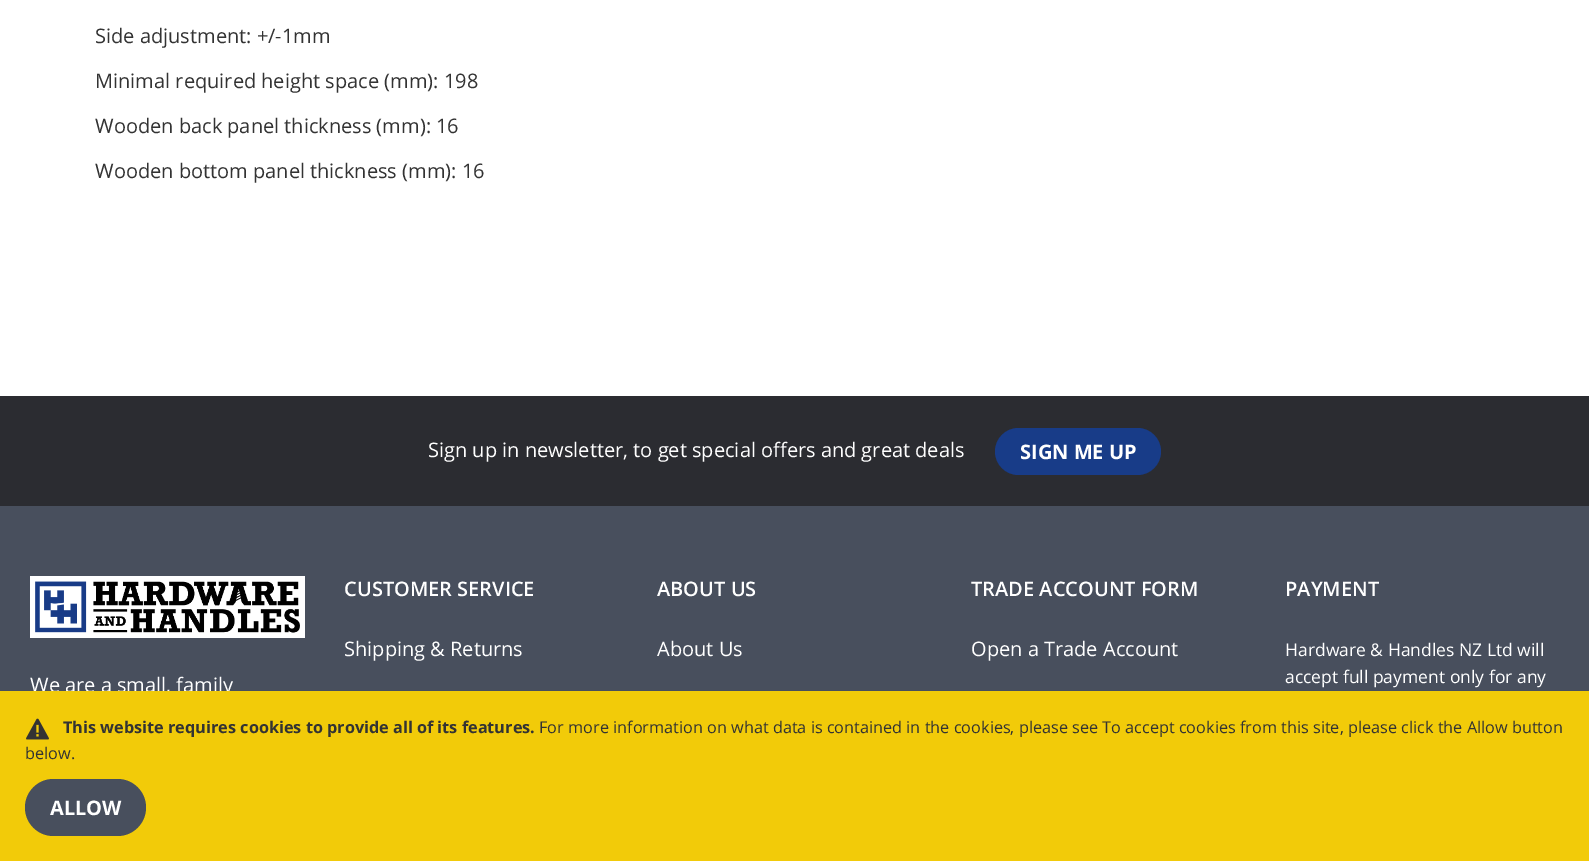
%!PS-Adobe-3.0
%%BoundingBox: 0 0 1589 861
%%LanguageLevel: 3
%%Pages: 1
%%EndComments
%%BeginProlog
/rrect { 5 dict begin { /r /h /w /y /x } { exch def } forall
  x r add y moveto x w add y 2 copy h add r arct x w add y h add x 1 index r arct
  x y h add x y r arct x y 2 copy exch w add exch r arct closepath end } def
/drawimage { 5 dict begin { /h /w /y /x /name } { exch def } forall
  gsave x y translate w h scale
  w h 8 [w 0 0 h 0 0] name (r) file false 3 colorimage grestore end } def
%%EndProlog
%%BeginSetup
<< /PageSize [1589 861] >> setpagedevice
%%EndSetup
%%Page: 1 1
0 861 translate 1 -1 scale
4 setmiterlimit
1 setgray
0 0 1589 861 rectfill
0.169 0.173 0.192 setrgbcolor
0 396 1589 110 rectfill
0.094 0.235 0.533 setrgbcolor
995 428 166 47 23.5 rrect fill
0.282 0.31 0.365 setrgbcolor
0 506 1589 185 rectfill
1 setgray
30 576 275 62 rectfill
(images/1.raw) 35 581 265 52 drawimage
/OpenSans-Regular [20 0 0 -20 0 0] selectfont
0.2 setgray
95 43 moveto (Side adjustment: +/-1mm) show
95 88 moveto (Minimal required height space \(mm\): 198) show
95 133 moveto (Wooden back panel thickness \(mm\): 16) show
95 178 moveto (Wooden bottom panel thickness \(mm\): 16) show
1 setgray
428 457 moveto (Sign up in newsletter, to get special offers and great deals) show
/OpenSans-Bold [20 0 0 -20 0 0] selectfont
1020 459 moveto (SIGN ME UP) show
/OpenSans-Regular [20 0 0 -20 0 0] selectfont
30 692 moveto (We are a small, family) show
/OpenSans-SemiBold [20 0 0 -20 0 0] selectfont
344 596 moveto (CUSTOMER SERVICE) show
/OpenSans-Regular [20 0 0 -20 0 0] selectfont
344 656 moveto (Shipping & Returns) show
/OpenSans-SemiBold [20 0 0 -20 0 0] selectfont
657 596 moveto (ABOUT US) show
/OpenSans-Regular [20 0 0 -20 0 0] selectfont
657 656 moveto (About Us) show
/OpenSans-SemiBold [20 0 0 -20 0 0] selectfont
971 596 moveto (TRADE ACCOUNT FORM) show
/OpenSans-Regular [20 0 0 -20 0 0] selectfont
971 656 moveto (Open a Trade Account) show
/OpenSans-SemiBold [20 0 0 -20 0 0] selectfont
1285 596 moveto (PAYMENT) show
/OpenSans-Regular [17.5 0 0 -17.5 0 0] selectfont
1285 656 moveto (Hardware & Handles NZ Ltd will) show
1285 683 moveto (accept full payment only for any) show
0.949 0.796 0.035 setrgbcolor
0 691 1589 170 rectfill
(images/2.raw) 26 718 23 22 drawimage
/OpenSans-Bold [16.25 0 0 -16.25 0 0] selectfont
0.2 setgray
63 733 moveto (This website requires cookies to provide all of its features.) show
/OpenSans-Regular [16.25 0 0 -16.25 0 0] selectfont
539 733 moveto (For more information on what data is contained in the cookies, please see To accept cookies from this site, please click the Allow button) show
25 759 moveto (below.) show
0.282 0.31 0.365 setrgbcolor
25 779 121 57 28.5 rrect fill
/OpenSans-Bold [20 0 0 -20 0 0] selectfont
1 setgray
50 815 moveto (ALLOW) show
showpage
%%EOF
